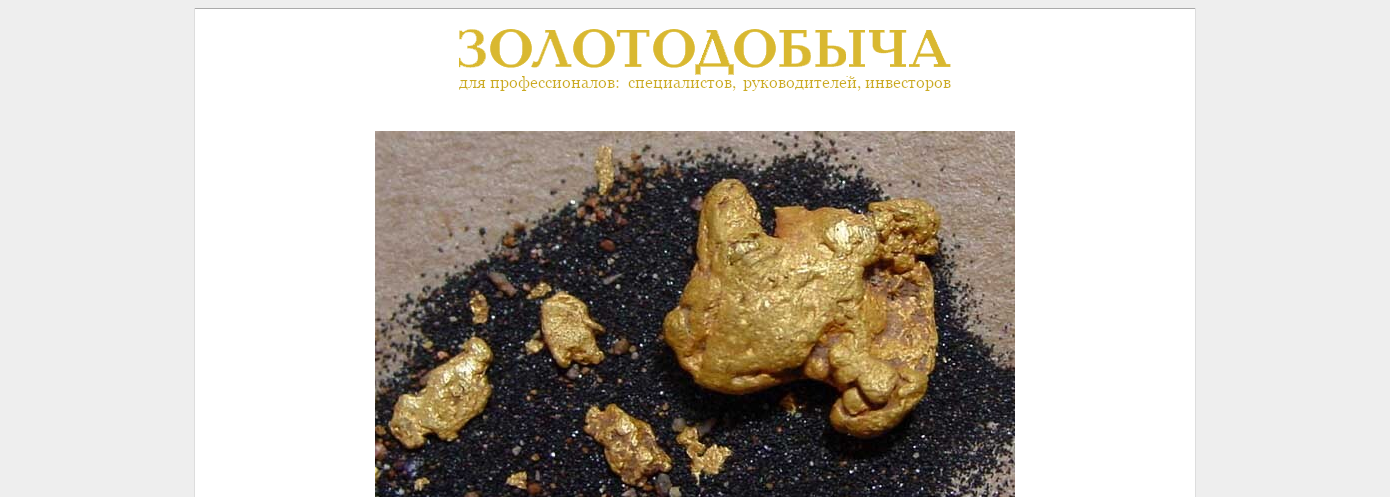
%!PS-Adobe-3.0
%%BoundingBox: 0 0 1390 497
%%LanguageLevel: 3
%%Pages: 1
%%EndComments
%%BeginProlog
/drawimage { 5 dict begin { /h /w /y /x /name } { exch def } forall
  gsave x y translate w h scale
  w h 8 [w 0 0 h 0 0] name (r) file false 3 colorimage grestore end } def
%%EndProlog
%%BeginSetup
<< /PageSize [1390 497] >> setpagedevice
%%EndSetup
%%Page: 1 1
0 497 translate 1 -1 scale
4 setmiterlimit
0.933 setgray
0 0 1390 497 rectfill
1 setgray
195 9 1000 488 rectfill
0.667 setgray
194 8 1002 1 rectfill
0.867 setgray
1195 8 1 489 rectfill
194 8 1 489 rectfill
(images/1.raw) 459 29 492 62 drawimage
(images/2.raw) 375 131 640 366 drawimage
showpage
%%EOF
